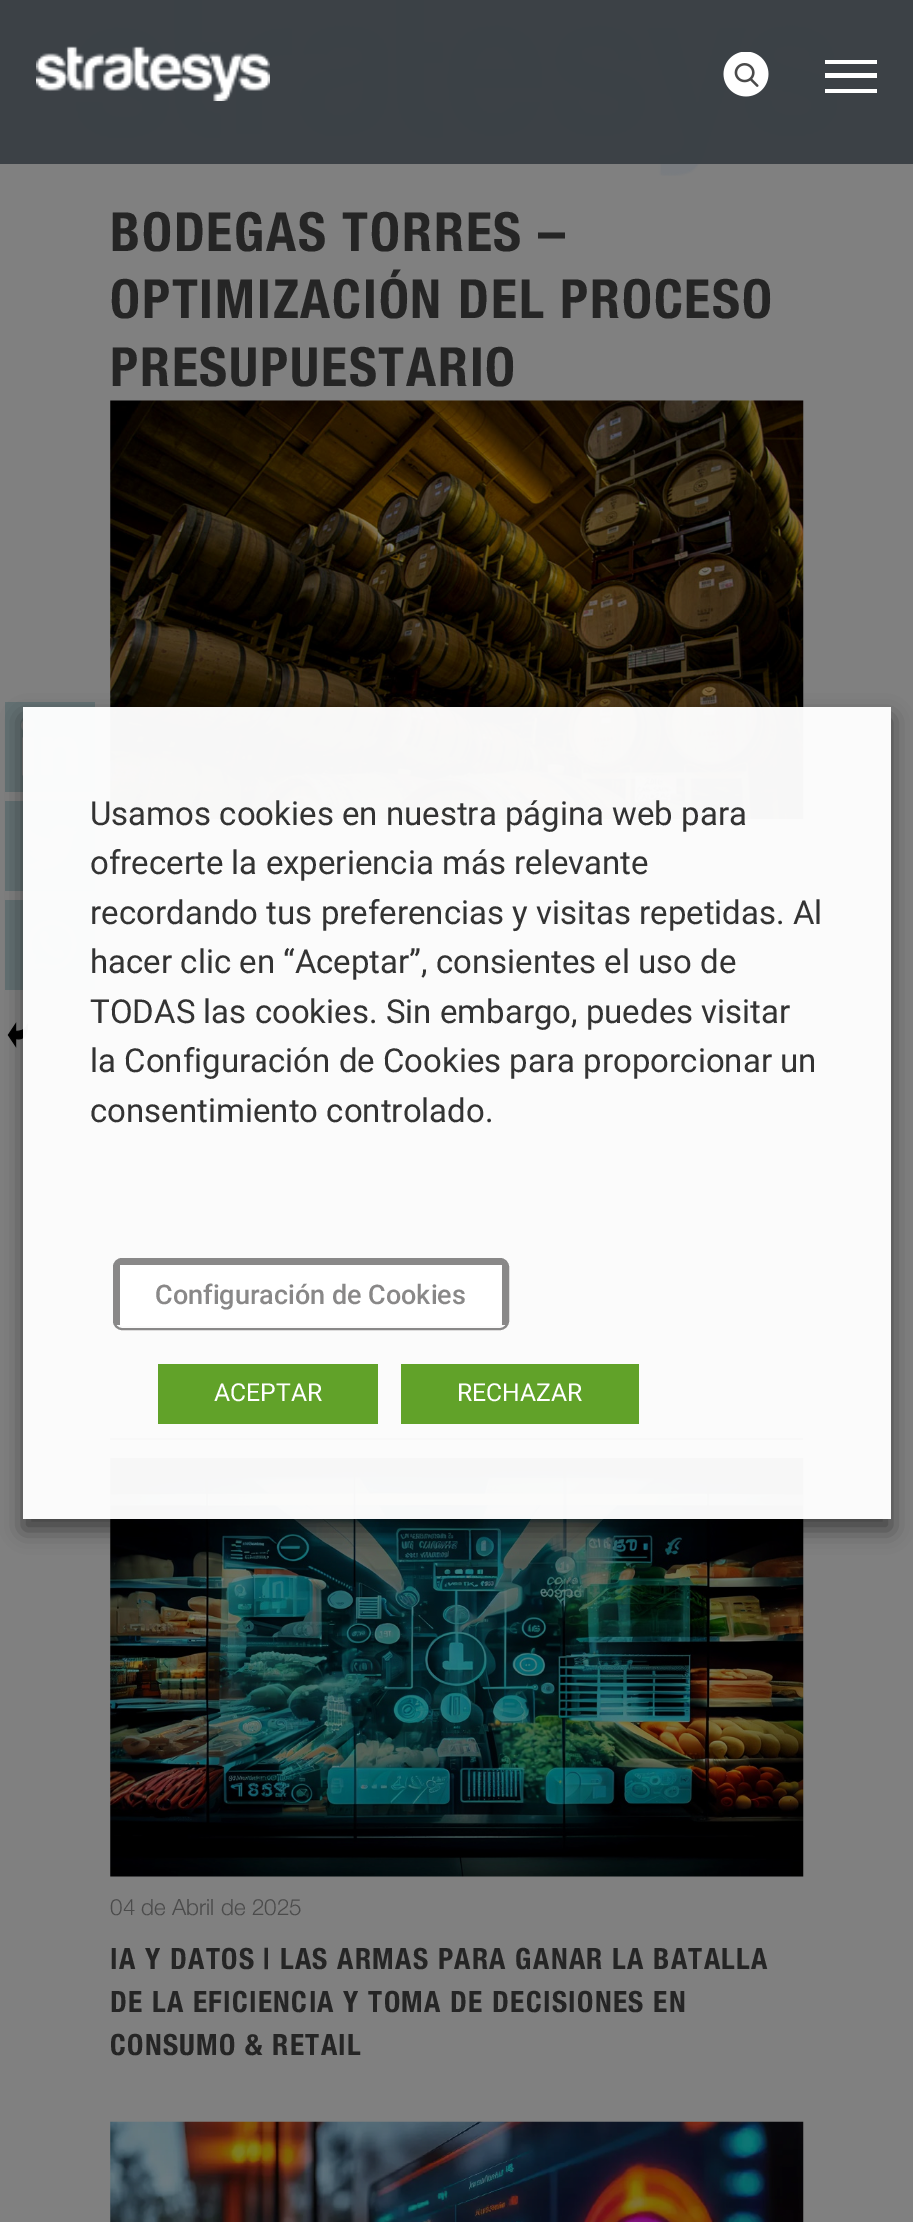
%!PS-Adobe-3.0
%%BoundingBox: 0 0 913 2222
%%LanguageLevel: 3
%%Pages: 1
%%EndComments
%%BeginProlog
/setalpha { dup .setfillconstantalpha .setstrokeconstantalpha } def
/rrect { 5 dict begin { /r /h /w /y /x } { exch def } forall
  x r add y moveto x w add y 2 copy h add r arct x w add y h add x 1 index r arct
  x y h add x y r arct x y 2 copy exch w add exch r arct closepath end } def
/softshadow { 12 dict begin { /a /b /q /h /w /y /x } { exch def } forall gsave /was 0 def
  9 -2 -9 { dup b mul 4 div /e exch def 1 sub .425 mul 2.718 exch exp 1 add a .99 .min exch div /now exch def
    1 1 now sub 1 was sub div sub setalpha /was now def
    w h .min e 2 mul add 0 gt { x e sub y e sub w e 2 mul add h e 2 mul add
      q e add b .6 mul add w h .min 2 div e add .min 0 .max rrect fill } if } for grestore end } def
/drawimage { 5 dict begin { /h /w /y /x /name } { exch def } forall
  gsave x y translate w h scale
  w h 8 [w 0 0 h 0 0] name (r) file false 3 colorimage grestore end } def
%%EndProlog
%%BeginSetup
<< /PageSize [913 2222] /PageUsesTransparency true >> setpagedevice
%%EndSetup
%%Page: 1 1
0 .pushpdf14devicefilter
0 2222 translate 1 -1 scale
4 setmiterlimit
0.502 setgray
0 0 913 2222 rectfill
0.235 0.255 0.275 setrgbcolor
0 0 913 164 rectfill
(images/3.raw) 76 0 761 176 drawimage
(images/1.raw) 36 46 234 55 drawimage
(images/2.raw) 723 52 46 45 drawimage
1 setgray
newpath 825 93 moveto 877 93 lineto 877 89 lineto 825 89 lineto closepath 825 78 moveto 877 78 lineto 877 73 lineto 825 73 lineto closepath 825 60 moveto 825 64 lineto 877 64 lineto 877 60 lineto closepath eofill
(images/4.raw) 110 400 694 419 drawimage
0.392 0.443 0.451 setrgbcolor
5 702 90 90 rectfill
(images/5.raw) 21 718 57 58 drawimage
5 801 90 90 rectfill
(images/6.raw) 23 824 55 46 drawimage
5 900 90 90 rectfill
0.502 setgray
4.5 setlinewidth
newpath 44 966 moveto 72.5 976.5 87.5 932.5 58.5 923.5 curveto 52 921.5 45 922.5 39.5 926 curveto 29 933 26 947.5 33.5 958 curveto 34 954 moveto 31.5 967.5 lineto 45 965 lineto stroke
newpath 40.5 934 moveto 39 946 45 954 58.5 958.5 curveto 70 956 58.5 945 56 952 curveto 50 947 46.5 943.5 45 940.5 curveto 54 936 43 929 43 931.5 curveto fill
(images/7.raw) 7 1022 22 26 drawimage
0.145 setgray
110 1438 693 2 rectfill
(images/8.raw) 110 1458 694 419 drawimage
(images/9.raw) 110 2121 694 101 drawimage
gsave
newpath 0 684 moveto 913 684 lineto 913 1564 lineto 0 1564 lineto closepath 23 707 moveto 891 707 lineto 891 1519 lineto 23 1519 lineto closepath eoclip newpath
0 setgray
23 718 868 812 0 11 0.5 softshadow
grestore
0.97 setalpha
1 setgray
23 707 868 812 rectfill
1 setalpha
newpath 122 1263 moveto 500 1263 lineto 501 1263 502 1264 502 1266 curveto 502 1320 lineto 502 1323 501 1326 500 1326 curveto 122 1326 lineto 120 1326 119 1323 119 1320 curveto 119 1266 lineto 119 1264 120 1263 122 1263 curveto closepath fill
0.537 0.533 0.533 setrgbcolor
2 setlinewidth
114 1259 394 70 8 rrect stroke
117 1260 387 5 rectfill
502 1262 5 63 rectfill
115 1262 5 63 rectfill
0.38 0.635 0.161 setrgbcolor
158 1364 220 60 rectfill
401 1364 238 60 rectfill
/HelveticaNeue-Bold [54 0 0 -54 0 0] selectfont
0.145 setgray
110 251 moveto 1.8 0 (BODEGAS TORRES –) ashow
110 318 moveto 1.8 0 (OPTIMIZACIÓN DEL PROCESO) ashow
110 386 moveto 1.8 0 (PRESUPUESTARIO) ashow
/HelveticaNeue-Light [22.5 0 0 -22.5 0 0] selectfont
0.294 setgray
110 1915 moveto (04 de Abril de 2025) show
/HelveticaNeue-Bold [29.25 0 0 -29.25 0 0] selectfont
0.145 setgray
110 1969 moveto 1.35 0 (IA Y DATOS | LAS ARMAS PARA GANAR LA BATALLA) ashow
110 2012 moveto 1.35 0 (DE LA EFICIENCIA Y TOMA DE DECISIONES EN) ashow
110 2055 moveto 1.35 0 (CONSUMO & RETAIL) ashow
/Roboto-Regular [33 0 0 -33 0 0] selectfont
0.2 setgray
90 825 moveto (Usamos cookies en nuestra página web para) show
90 874 moveto (ofrecerte la experiencia más relevante) show
90 924 moveto (recordando tus preferencias y visitas repetidas. Al) show
90 973 moveto (hacer clic en “Aceptar”, consientes el uso de) show
90 1023 moveto (TODAS las cookies. Sin embargo, puedes visitar) show
90 1072 moveto (la Configuración de Cookies para proporcionar un) show
90 1122 moveto (consentimiento controlado.) show
/Roboto-Medium [27 0 0 -27 0 0] selectfont
0.537 0.533 0.533 setrgbcolor
155 1304 moveto (Configuración de Cookies) show
/Roboto-Regular [24.75 0 0 -24.75 0 0] selectfont
1 setgray
214 1401 moveto (ACEPTAR) show
457 1401 moveto (RECHAZAR) show
.poppdf14devicefilter showpage
%%EOF
